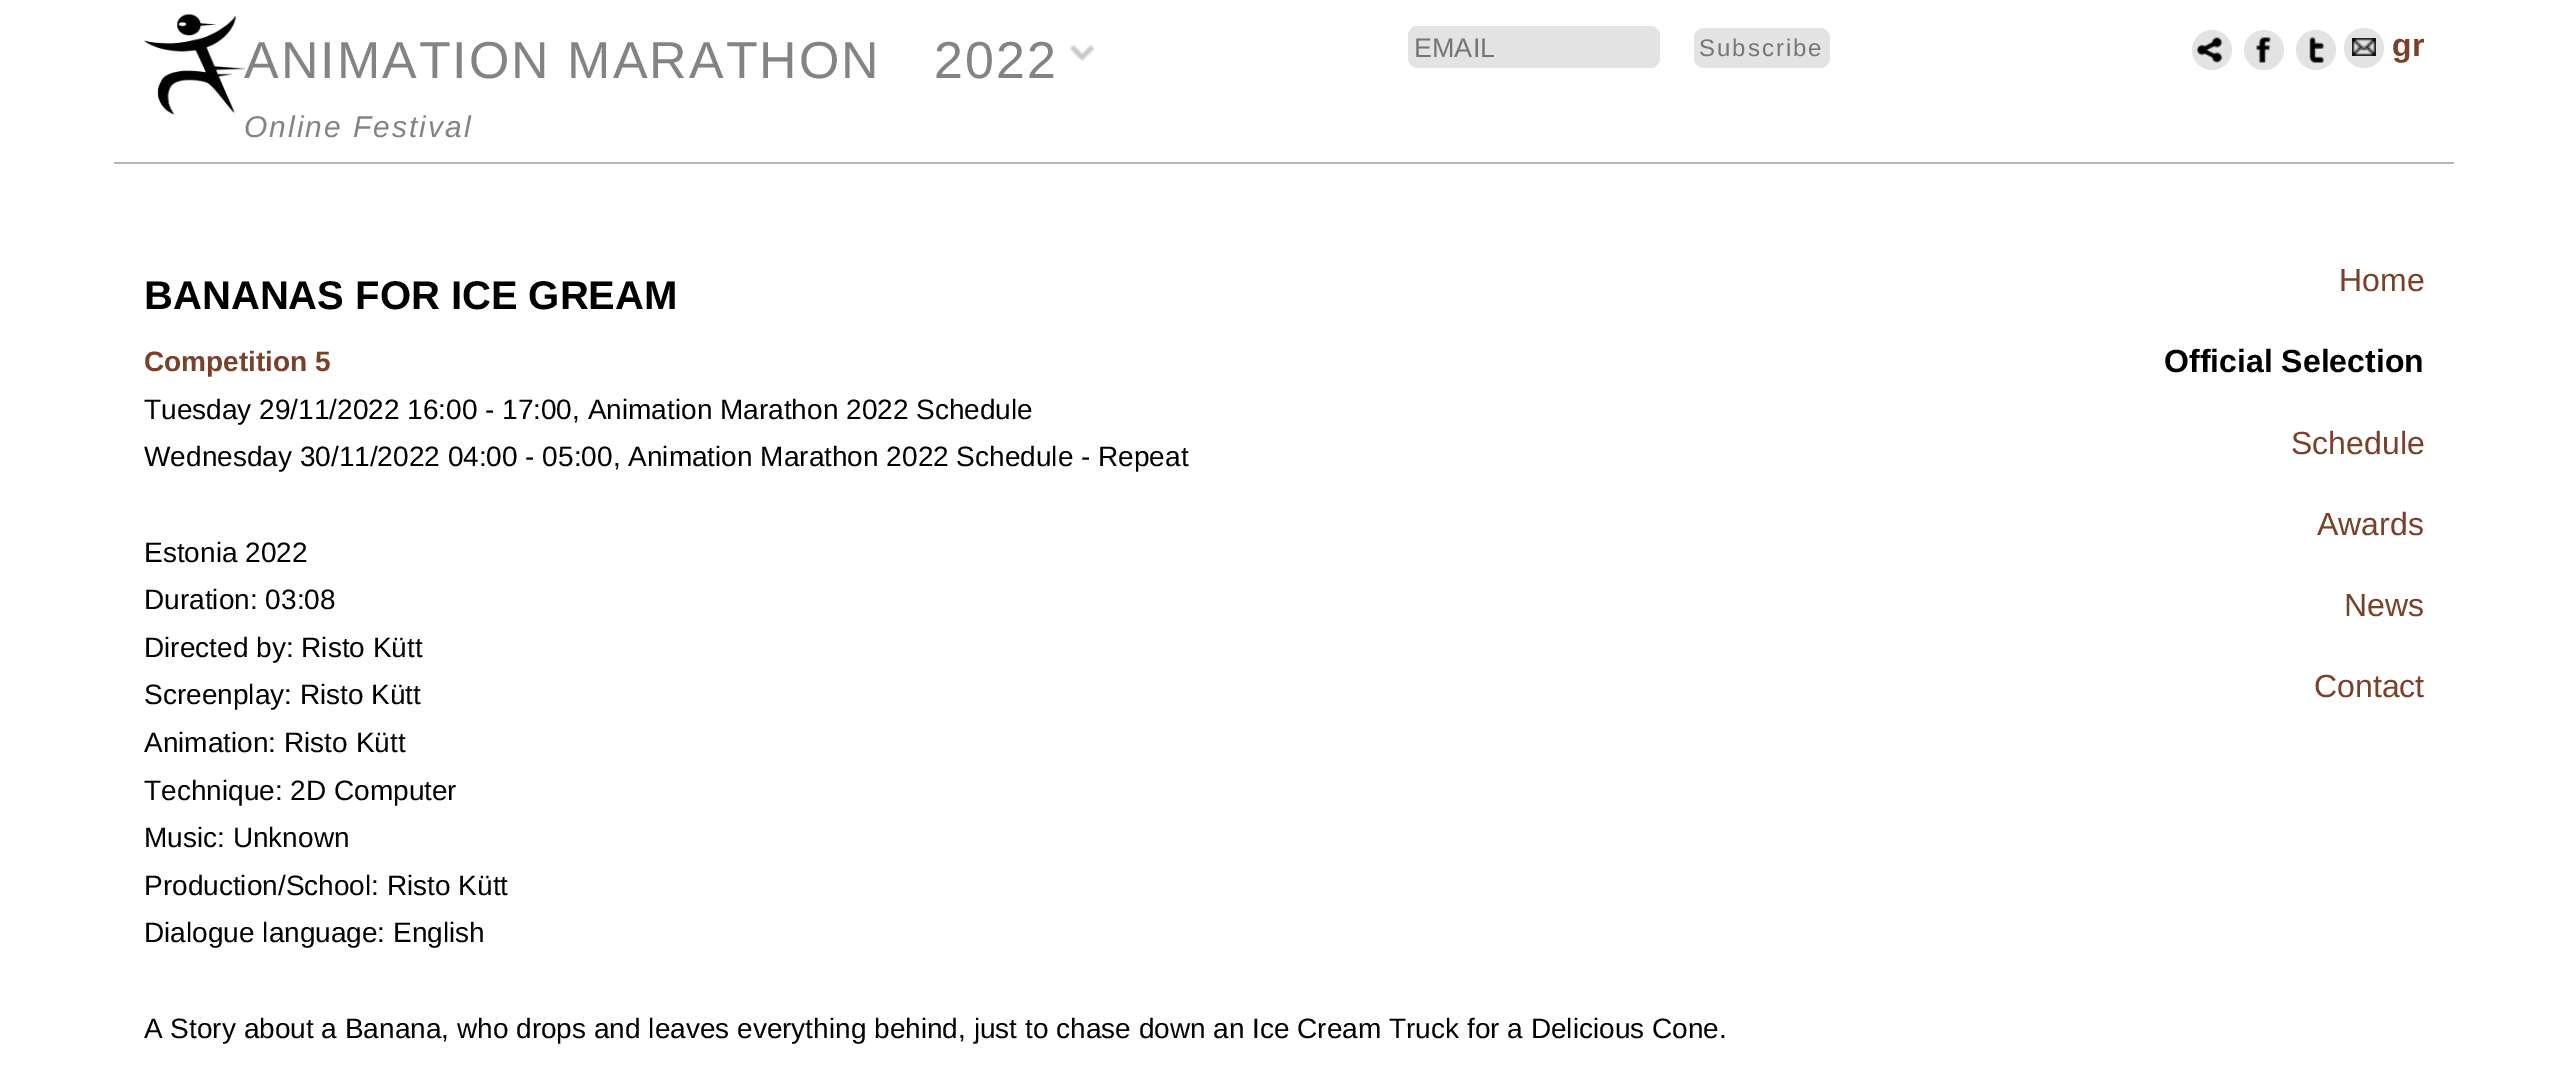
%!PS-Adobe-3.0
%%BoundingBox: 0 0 2568 1070
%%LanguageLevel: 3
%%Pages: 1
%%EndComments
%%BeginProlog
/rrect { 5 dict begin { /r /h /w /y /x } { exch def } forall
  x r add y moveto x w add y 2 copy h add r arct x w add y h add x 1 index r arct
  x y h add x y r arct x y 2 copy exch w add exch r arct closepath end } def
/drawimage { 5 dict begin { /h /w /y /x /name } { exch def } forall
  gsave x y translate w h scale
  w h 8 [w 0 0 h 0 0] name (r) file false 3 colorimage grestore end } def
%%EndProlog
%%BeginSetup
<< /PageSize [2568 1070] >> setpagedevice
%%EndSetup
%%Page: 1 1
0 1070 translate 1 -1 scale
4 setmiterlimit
1 setgray
0 0 2568 1070 rectfill
(images/1.raw) 144 13 102 102 drawimage
(images/2.raw) 1070 44 24 18 drawimage
0.89 setgray
1408 26 252 42 10 rrect fill
1694 28 136 40 10 rrect fill
newpath 2212 50 20 0 360 arc closepath fill
(images/3.raw) 2196 37 27 26 drawimage
newpath 2264 50 20 0 360 arc closepath fill
(images/4.raw) 2256 37 15 26 drawimage
newpath 2316 50 20 0 360 arc closepath fill
(images/5.raw) 2309 37 15 26 drawimage
newpath 2364 48 20 0 360 arc closepath fill
(images/6.raw) 2352 38 24 18 drawimage
0.71 setgray
114 162 2340 2 rectfill
/LiberationSans-Regular [52 0 0 -52 0 0] selectfont
0.514 setgray
244 78 moveto 2 0 (ANIMATION MARATHON) ashow
934 78 moveto 2 0 (2022) ashow
/LiberationSans-Italic [30 0 0 -30 0 0] selectfont
244 137 moveto 2 0 (Online Festival) ashow
/LiberationSans-Regular [27 0 0 -27 0 0] selectfont
0.459 setgray
1414 57 moveto (EMAIL) show
/LiberationSans-Regular [24 0 0 -24 0 0] selectfont
1699 56 moveto 2 0 (Subscribe) ashow
/LiberationSans-Bold [32 0 0 -32 0 0] selectfont
0.478 0.251 0.165 setrgbcolor
2392 56 moveto (gr) show
/LiberationSans-Bold [40 0 0 -40 0 0] selectfont
0 setgray
144 309 moveto (BANANAS FOR ICE GREAM) show
/LiberationSans-Bold [28 0 0 -28 0 0] selectfont
0.478 0.251 0.165 setrgbcolor
144 371 moveto (Competition 5) show
/LiberationSans-Regular [28 0 0 -28 0 0] selectfont
0 setgray
144 419 moveto (Tuesday 29/11/2022 16:00 - 17:00, Animation Marathon 2022 Schedule) show
144 466 moveto (Wednesday 30/11/2022 04:00 - 05:00, Animation Marathon 2022 Schedule - Repeat) show
144 562 moveto (Estonia 2022) show
144 609 moveto (Duration: 03:08) show
144 657 moveto (Directed by: Risto Kütt) show
144 704 moveto (Screenplay: Risto Kütt) show
144 752 moveto (Animation: Risto Kütt) show
144 800 moveto (Technique: 2D Computer) show
144 847 moveto (Music: Unknown) show
144 895 moveto (Production/School: Risto Kütt) show
144 942 moveto (Dialogue language: English) show
144 1038 moveto (A Story about a Banana, who drops and leaves everything behind, just to chase down an Ice Cream Truck for a Delicious Cone.) show
/LiberationSans-Regular [32 0 0 -32 0 0] selectfont
0.478 0.251 0.165 setrgbcolor
2339 291 moveto (Home) show
/LiberationSans-Bold [32 0 0 -32 0 0] selectfont
0 setgray
2164 372 moveto (Official Selection) show
/LiberationSans-Regular [32 0 0 -32 0 0] selectfont
0.478 0.251 0.165 setrgbcolor
2291 454 moveto (Schedule) show
2317 535 moveto (Awards) show
2344 616 moveto (News) show
2314 697 moveto (Contact) show
showpage
%%EOF
